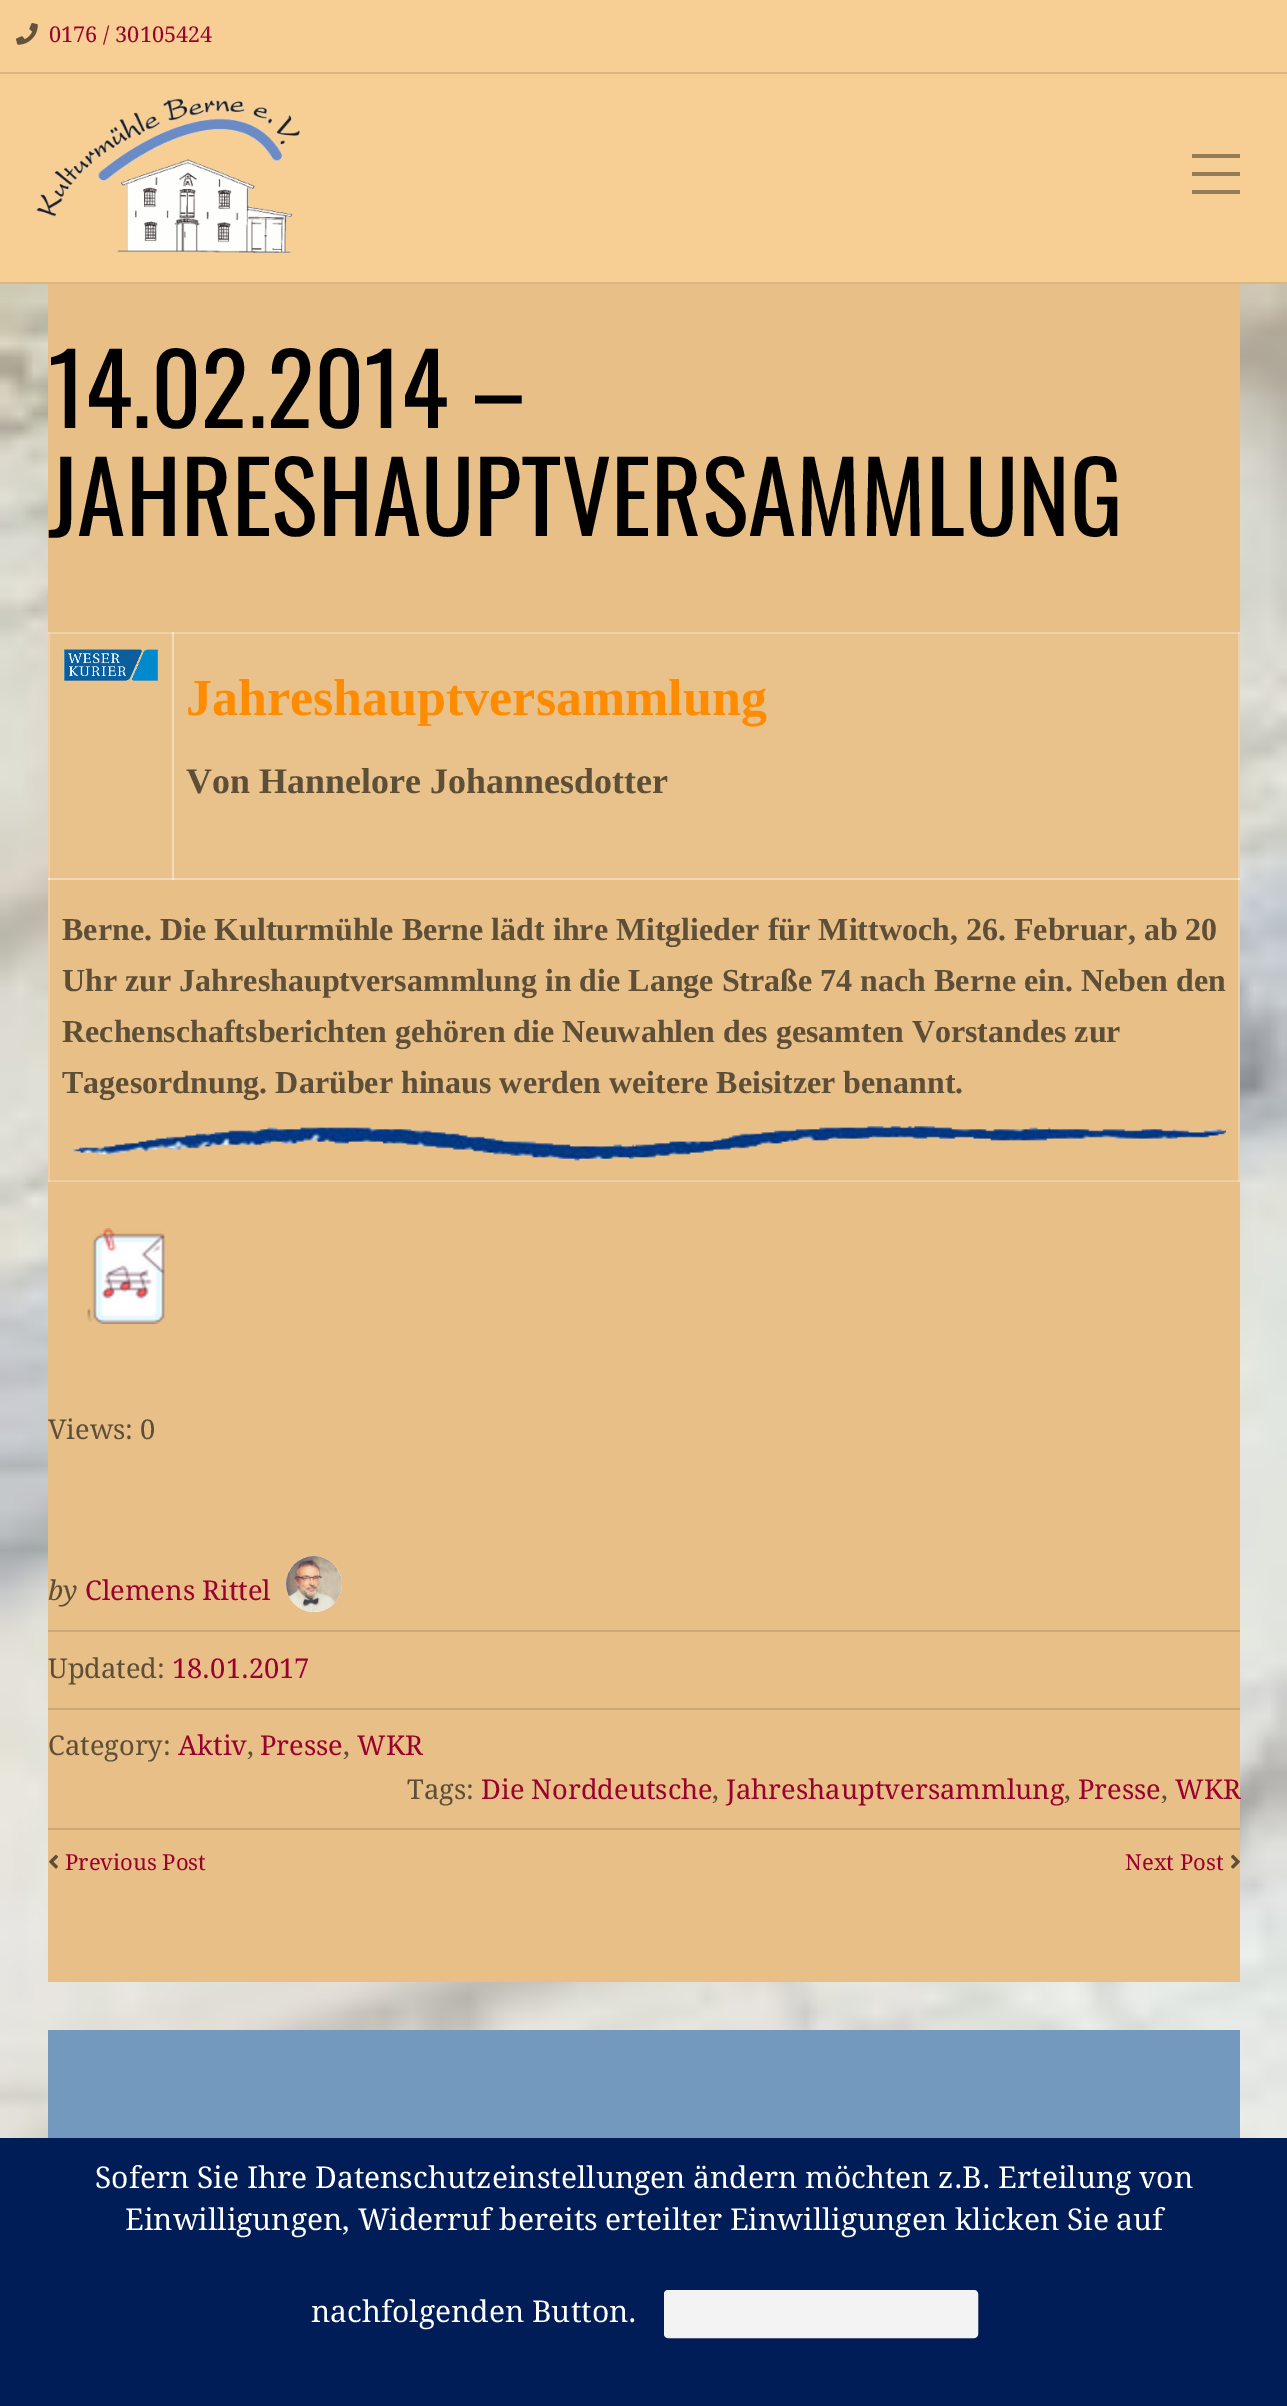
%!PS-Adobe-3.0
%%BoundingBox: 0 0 1287 2406
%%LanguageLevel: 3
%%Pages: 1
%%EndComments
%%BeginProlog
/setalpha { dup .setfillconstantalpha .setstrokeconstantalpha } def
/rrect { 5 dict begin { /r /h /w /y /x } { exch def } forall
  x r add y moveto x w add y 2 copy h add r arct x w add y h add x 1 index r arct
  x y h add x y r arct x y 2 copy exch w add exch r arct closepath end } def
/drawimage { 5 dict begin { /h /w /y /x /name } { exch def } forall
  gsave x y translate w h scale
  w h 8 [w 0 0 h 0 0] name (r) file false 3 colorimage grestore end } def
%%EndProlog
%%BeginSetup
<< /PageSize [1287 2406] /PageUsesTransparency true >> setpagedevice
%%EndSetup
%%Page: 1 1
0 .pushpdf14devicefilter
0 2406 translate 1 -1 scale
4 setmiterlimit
1 setgray
0 0 1287 2406 rectfill
(images/1.raw) 0 284 1287 1854 drawimage
0.969 0.812 0.58 setrgbcolor
0 0 1287 282 rectfill
0.851 0.714 0.51 setrgbcolor
0 282 1287 2 rectfill
0 72 1287 2 rectfill
(images/2.raw) 16 23 22 22 drawimage
(images/3.raw) 36 98 264 155 drawimage
0.58 0.486 0.349 setrgbcolor
1192 154 48 4 rectfill
1192 172 48 4 rectfill
1192 190 48 4 rectfill
0.91 0.749 0.525 setrgbcolor
48 284 1192 1698 rectfill
0.914 0.761 0.545 setrgbcolor
50 632 1190 246 rectfill
0.933 0.82 0.655 setrgbcolor
172 632 1068 2 rectfill
0.933 0.808 0.639 setrgbcolor
48 878 1192 2 rectfill
0.24 setalpha
1 setgray
1238 878 2 304 rectfill
1238 632 2 248 rectfill
172 878 1068 2 rectfill
172 632 2 248 rectfill
48 632 126 2 rectfill
172 632 2 248 rectfill
48 1180 1192 2 rectfill
48 878 2 304 rectfill
48 878 126 2 rectfill
48 632 2 248 rectfill
1 setalpha
(images/4.raw) 63 649 95 32 drawimage
(images/5.raw) 71 1126 1155 35 drawimage
(images/6.raw) 87 1228 78 96 drawimage
newpath 314 1584 28 0 360 arc closepath fill
(images/7.raw) 286 1556 56 56 drawimage
0.8 0.659 0.463 setrgbcolor
48 1630 1192 2 rectfill
48 1708 1192 2 rectfill
48 1828 1192 2 rectfill
(images/8.raw) 49 1854 9 15 drawimage
(images/9.raw) 1231 1854 9 15 drawimage
0.455 0.6 0.749 setrgbcolor
48 2030 1192 108 rectfill
0.004 0.114 0.341 setrgbcolor
0 2138 1287 268 rectfill
0.953 setgray
665 2291 312 46 3 rrect gsave fill grestore
2 setlinewidth
stroke
/DroidSerif-Regular [21.75 0 0 -21.75 0 0] selectfont
0.6 0.004 0.18 setrgbcolor
49 42 moveto (0176 / 30105424) show
/Oswald-Regular [98 0 0 -98 0 0] selectfont
0 setgray
48 428 moveto (14.02.2014 –) show
48 536 moveto (JAHRESHAUPTVERSAMMLUNG) show
/LiberationSerif-Bold [52 0 0 -52 0 0] selectfont
1 0.549 0 setrgbcolor
186 715 moveto (Jahreshauptversammlung) show
/LiberationSerif-Bold [36 0 0 -36 0 0] selectfont
0.365 0.306 0.22 setrgbcolor
186 793 moveto (Von Hannelore Johannesdotter) show
/LiberationSerif-Bold [32 0 0 -32 0 0] selectfont
62 940 moveto (Berne. Die Kulturmühle Berne lädt ihre Mitglieder für Mittwoch, 26. Februar, ab 20) show
62 991 moveto (Uhr zur Jahreshauptversammlung in die Lange Straße 74 nach Berne ein. Neben den) show
62 1042 moveto (Rechenschaftsberichten gehören die Neuwahlen des gesamten Vorstandes zur) show
62 1093 moveto (Tagesordnung. Darüber hinaus werden weitere Beisitzer benannt.) show
/DroidSerif-Regular [27.25 0 0 -27.25 0 0] selectfont
48 1439 moveto (Views: 0) show
/DroidSerif-Italic [27.25 0 0 -27.25 0 0] selectfont
48 1600 moveto (by) show
/DroidSerif-Regular [27.25 0 0 -27.25 0 0] selectfont
0.6 0.004 0.18 setrgbcolor
85 1600 moveto (Clemens Rittel) show
0.365 0.306 0.22 setrgbcolor
48 1678 moveto (Updated:) show
0.6 0.004 0.18 setrgbcolor
172 1678 moveto (18.01.2017) show
0.365 0.306 0.22 setrgbcolor
48 1755 moveto (Category:) show
0.6 0.004 0.18 setrgbcolor
178 1755 moveto (Aktiv) show
0.365 0.306 0.22 setrgbcolor
247 1755 moveto (,) show
0.6 0.004 0.18 setrgbcolor
260 1755 moveto (Presse) show
0.365 0.306 0.22 setrgbcolor
343 1755 moveto (,) show
0.6 0.004 0.18 setrgbcolor
357 1755 moveto (WKR) show
0.365 0.306 0.22 setrgbcolor
407 1799 moveto (Tags:) show
0.6 0.004 0.18 setrgbcolor
481 1799 moveto (Die Norddeutsche) show
0.365 0.306 0.22 setrgbcolor
712 1799 moveto (,) show
0.6 0.004 0.18 setrgbcolor
726 1799 moveto (Jahreshauptversammlung) show
0.365 0.306 0.22 setrgbcolor
1064 1799 moveto (,) show
0.6 0.004 0.18 setrgbcolor
1078 1799 moveto (Presse) show
0.365 0.306 0.22 setrgbcolor
1161 1799 moveto (,) show
0.6 0.004 0.18 setrgbcolor
1175 1799 moveto (WKR) show
/DroidSerif-Regular [22 0 0 -22 0 0] selectfont
65 1870 moveto (Previous Post) show
1125 1870 moveto (Next Post) show
/DroidSerif-Regular [30 0 0 -30 0 0] selectfont
1 setgray
95 2188 moveto (Sofern Sie Ihre Datenschutzeinstellungen ändern möchten z.B. Erteilung von) show
125 2230 moveto (Einwilligungen, Widerruf bereits erteilter Einwilligungen klicken Sie auf) show
311 2322 moveto (nachfolgenden Button.) show
.poppdf14devicefilter showpage
%%EOF
